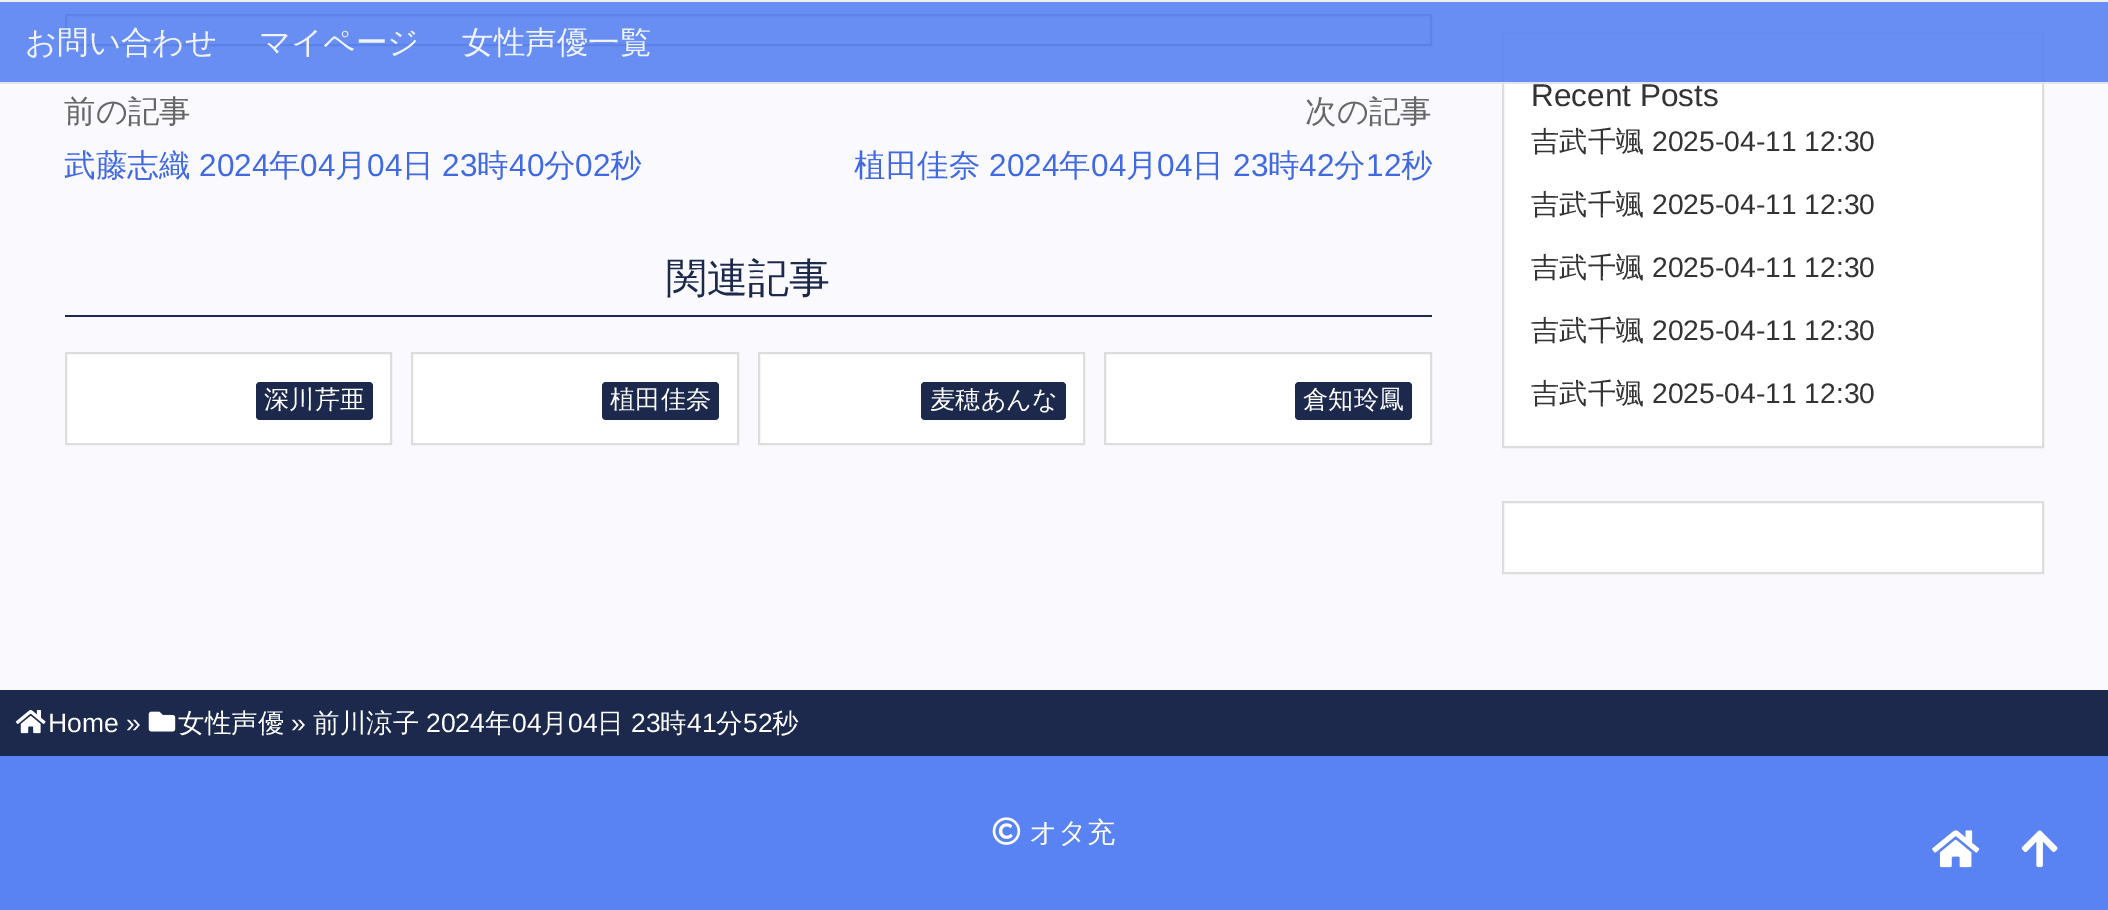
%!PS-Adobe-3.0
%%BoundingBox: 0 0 2108 910
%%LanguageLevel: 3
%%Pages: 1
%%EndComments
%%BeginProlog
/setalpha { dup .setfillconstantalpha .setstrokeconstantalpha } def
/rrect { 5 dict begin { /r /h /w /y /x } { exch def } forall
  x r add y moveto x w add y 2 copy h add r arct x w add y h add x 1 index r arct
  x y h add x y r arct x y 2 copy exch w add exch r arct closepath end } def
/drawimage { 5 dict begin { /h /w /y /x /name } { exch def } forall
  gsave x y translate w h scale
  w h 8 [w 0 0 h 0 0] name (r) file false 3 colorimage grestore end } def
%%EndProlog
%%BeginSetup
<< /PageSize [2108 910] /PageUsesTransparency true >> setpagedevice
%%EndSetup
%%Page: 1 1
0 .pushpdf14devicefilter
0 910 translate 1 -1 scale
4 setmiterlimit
0.98 0.98 0.996 setrgbcolor
0 0 2108 910 rectfill
1 setgray
newpath 66 15 moveto 1431 15 lineto 1431 45 lineto 66 45 lineto closepath gsave fill grestore
0.502 setgray
2 setlinewidth
stroke
1 setgray
newpath 1503 33 moveto 2043 33 lineto 2043 447 lineto 1503 447 lineto closepath gsave fill grestore
0.867 setgray
stroke
0.9 setalpha
0.349 0.51 0.949 setrgbcolor
0 2 2108 82 rectfill
1 setalpha
0.937 0.937 0.941 setrgbcolor
0 0 2108 2 rectfill
0.9 setalpha
0.933 setgray
0 82 2108 2 rectfill
1 setalpha
0.11 0.161 0.302 setrgbcolor
65 315 1367 2 rectfill
1 setgray
newpath 66 353 moveto 391 353 lineto 391 444 lineto 66 444 lineto closepath gsave fill grestore
0.867 setgray
stroke
0.11 0.161 0.302 setrgbcolor
256 382 117 38 4 rrect fill
1 setgray
newpath 412 353 moveto 738 353 lineto 738 444 lineto 412 444 lineto closepath gsave fill grestore
0.867 setgray
stroke
0.11 0.161 0.302 setrgbcolor
602 382 117 38 4 rrect fill
1 setgray
newpath 759 353 moveto 1084 353 lineto 1084 444 lineto 759 444 lineto closepath gsave fill grestore
0.867 setgray
stroke
0.11 0.161 0.302 setrgbcolor
921 382 145 38 4 rrect fill
1 setgray
newpath 1105 353 moveto 1431 353 lineto 1431 444 lineto 1105 444 lineto closepath gsave fill grestore
0.867 setgray
stroke
0.11 0.161 0.302 setrgbcolor
1295 382 117 38 4 rrect fill
1 setgray
newpath 1503 502 moveto 2043 502 lineto 2043 573 lineto 1503 573 lineto closepath gsave fill grestore
0.867 setgray
stroke
0.11 0.161 0.302 setrgbcolor
0 690 2108 66 rectfill
(images/1.raw) 15 710 31 24 drawimage
(images/2.raw) 148 711 28 21 drawimage
0.349 0.51 0.949 setrgbcolor
0 756 2108 154 rectfill
(images/3.raw) 992 817 29 28 drawimage
(images/4.raw) 1932 830 48 38 drawimage
(images/5.raw) 2021 830 37 38 drawimage
/WenQuanYiZenHei-Medium [31.5 0 0 -31.5 0 0] selectfont
0.941 0.957 0.996 setrgbcolor
25 53 moveto (お問い合わせ) show
259 53 moveto (マイページ) show
462 53 moveto (女性声優一覧) show
0.4 setgray
64 122 moveto (前の記事) show
0.255 0.412 0.882 setrgbcolor
64 176 moveto (武藤志織) show
/LiberationSans-Regular [31.5 0 0 -31.5 0 0] selectfont
199 176 moveto (2024) show
/WenQuanYiZenHei-Medium [31.5 0 0 -31.5 0 0] selectfont
269 176 moveto (年) show
/LiberationSans-Regular [31.5 0 0 -31.5 0 0] selectfont
300 176 moveto (04) show
/WenQuanYiZenHei-Medium [31.5 0 0 -31.5 0 0] selectfont
335 176 moveto (月) show
/LiberationSans-Regular [31.5 0 0 -31.5 0 0] selectfont
367 176 moveto (04) show
/WenQuanYiZenHei-Medium [31.5 0 0 -31.5 0 0] selectfont
402 176 moveto (日) show
/LiberationSans-Regular [31.5 0 0 -31.5 0 0] selectfont
442 176 moveto (23) show
/WenQuanYiZenHei-Medium [31.5 0 0 -31.5 0 0] selectfont
477 176 moveto (時) show
/LiberationSans-Regular [31.5 0 0 -31.5 0 0] selectfont
509 176 moveto (40) show
/WenQuanYiZenHei-Medium [31.5 0 0 -31.5 0 0] selectfont
544 176 moveto (分) show
/LiberationSans-Regular [31.5 0 0 -31.5 0 0] selectfont
575 176 moveto (02) show
/WenQuanYiZenHei-Medium [31.5 0 0 -31.5 0 0] selectfont
610 176 moveto (秒) show
0.4 setgray
1305 122 moveto (次の記事) show
0.255 0.412 0.882 setrgbcolor
854 176 moveto (植田佳奈) show
/LiberationSans-Regular [31.5 0 0 -31.5 0 0] selectfont
989 176 moveto (2024) show
/WenQuanYiZenHei-Medium [31.5 0 0 -31.5 0 0] selectfont
1059 176 moveto (年) show
/LiberationSans-Regular [31.5 0 0 -31.5 0 0] selectfont
1091 176 moveto (04) show
/WenQuanYiZenHei-Medium [31.5 0 0 -31.5 0 0] selectfont
1126 176 moveto (月) show
/LiberationSans-Regular [31.5 0 0 -31.5 0 0] selectfont
1157 176 moveto (04) show
/WenQuanYiZenHei-Medium [31.5 0 0 -31.5 0 0] selectfont
1192 176 moveto (日) show
/LiberationSans-Regular [31.5 0 0 -31.5 0 0] selectfont
1233 176 moveto (23) show
/WenQuanYiZenHei-Medium [31.5 0 0 -31.5 0 0] selectfont
1268 176 moveto (時) show
/LiberationSans-Regular [31.5 0 0 -31.5 0 0] selectfont
1299 176 moveto (42) show
/WenQuanYiZenHei-Medium [31.5 0 0 -31.5 0 0] selectfont
1334 176 moveto (分) show
/LiberationSans-Regular [31.5 0 0 -31.5 0 0] selectfont
1366 176 moveto (12) show
/WenQuanYiZenHei-Medium [31.5 0 0 -31.5 0 0] selectfont
1401 176 moveto (秒) show
/WenQuanYiZenHei-Medium [41 0 0 -41 0 0] selectfont
0.11 0.161 0.302 setrgbcolor
666 292 moveto (関連記事) show
/WenQuanYiZenHei-Medium [25.25 0 0 -25.25 0 0] selectfont
1 setgray
264 408 moveto (深川芹亜) show
610 408 moveto (植田佳奈) show
930 408 moveto (麦穂あんな) show
1303 408 moveto (倉知玲鳳) show
/LiberationSans-Regular [31.5 0 0 -31.5 0 0] selectfont
0.2 setgray
1531 106 moveto (Recent Posts) show
/WenQuanYiZenHei-Medium [28.25 0 0 -28.25 0 0] selectfont
1531 151 moveto (吉武千颯) show
/LiberationSans-Regular [28.25 0 0 -28.25 0 0] selectfont
1652 151 moveto (2025-04-11 12:30) show
/WenQuanYiZenHei-Medium [28.25 0 0 -28.25 0 0] selectfont
1531 214 moveto (吉武千颯) show
/LiberationSans-Regular [28.25 0 0 -28.25 0 0] selectfont
1652 214 moveto (2025-04-11 12:30) show
/WenQuanYiZenHei-Medium [28.25 0 0 -28.25 0 0] selectfont
1531 277 moveto (吉武千颯) show
/LiberationSans-Regular [28.25 0 0 -28.25 0 0] selectfont
1652 277 moveto (2025-04-11 12:30) show
/WenQuanYiZenHei-Medium [28.25 0 0 -28.25 0 0] selectfont
1531 340 moveto (吉武千颯) show
/LiberationSans-Regular [28.25 0 0 -28.25 0 0] selectfont
1652 340 moveto (2025-04-11 12:30) show
/WenQuanYiZenHei-Medium [28.25 0 0 -28.25 0 0] selectfont
1531 403 moveto (吉武千颯) show
/LiberationSans-Regular [28.25 0 0 -28.25 0 0] selectfont
1652 403 moveto (2025-04-11 12:30) show
/LiberationSans-Regular [26.5 0 0 -26.5 0 0] selectfont
1 setgray
48 732 moveto (Home ») show
/WenQuanYiZenHei-Medium [26.5 0 0 -26.5 0 0] selectfont
178 732 moveto (女性声優) show
/LiberationSans-Regular [26.5 0 0 -26.5 0 0] selectfont
291 732 moveto (») show
/WenQuanYiZenHei-Medium [26.5 0 0 -26.5 0 0] selectfont
313 732 moveto (前川涼子) show
/LiberationSans-Regular [26.5 0 0 -26.5 0 0] selectfont
426 732 moveto (2024) show
/WenQuanYiZenHei-Medium [26.5 0 0 -26.5 0 0] selectfont
485 732 moveto (年) show
/LiberationSans-Regular [26.5 0 0 -26.5 0 0] selectfont
512 732 moveto (04) show
/WenQuanYiZenHei-Medium [26.5 0 0 -26.5 0 0] selectfont
541 732 moveto (月) show
/LiberationSans-Regular [26.5 0 0 -26.5 0 0] selectfont
568 732 moveto (04) show
/WenQuanYiZenHei-Medium [26.5 0 0 -26.5 0 0] selectfont
597 732 moveto (日) show
/LiberationSans-Regular [26.5 0 0 -26.5 0 0] selectfont
631 732 moveto (23) show
/WenQuanYiZenHei-Medium [26.5 0 0 -26.5 0 0] selectfont
660 732 moveto (時) show
/LiberationSans-Regular [26.5 0 0 -26.5 0 0] selectfont
687 732 moveto (41) show
/WenQuanYiZenHei-Medium [26.5 0 0 -26.5 0 0] selectfont
716 732 moveto (分) show
/LiberationSans-Regular [26.5 0 0 -26.5 0 0] selectfont
743 732 moveto (52) show
/WenQuanYiZenHei-Medium [26.5 0 0 -26.5 0 0] selectfont
772 732 moveto (秒) show
/WenQuanYiZenHei-Medium [28.25 0 0 -28.25 0 0] selectfont
1029 842 moveto (オタ充) show
.poppdf14devicefilter showpage
%%EOF
